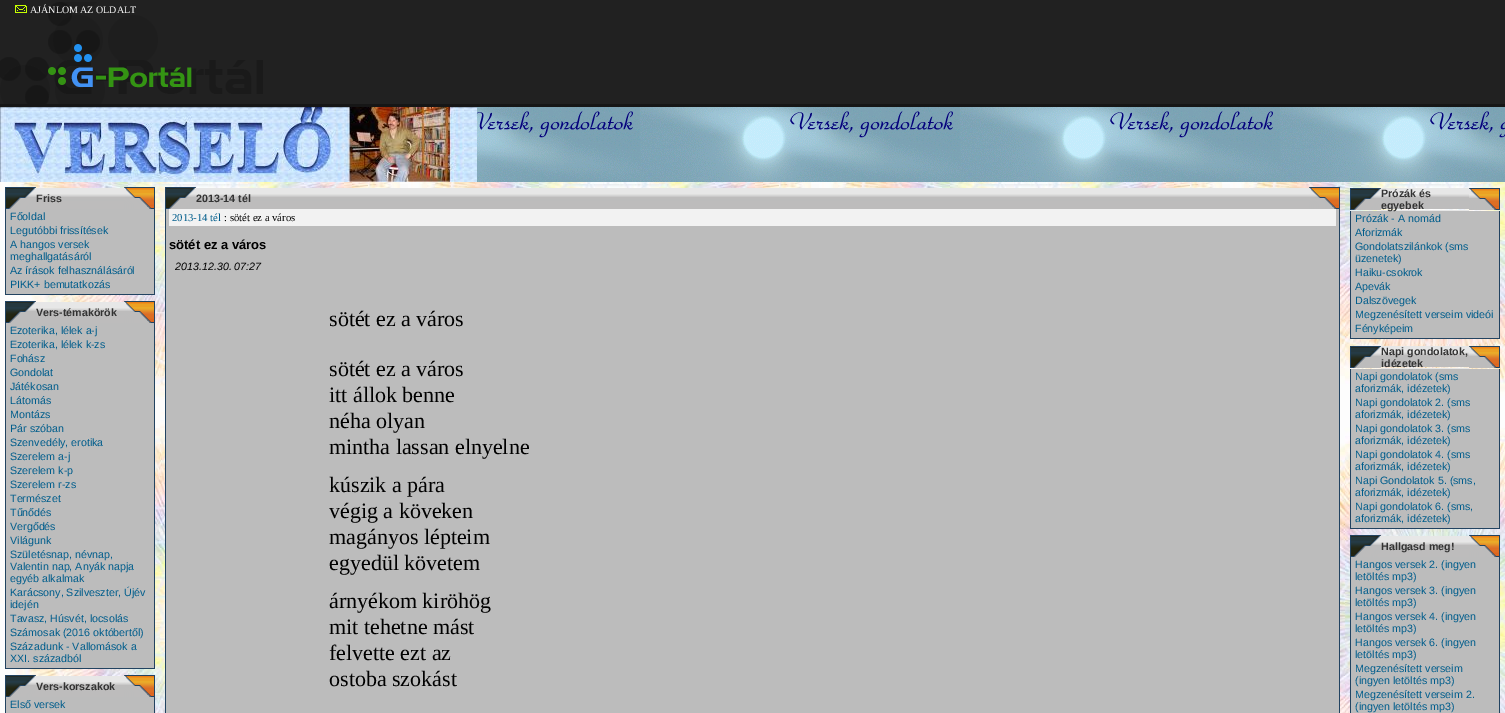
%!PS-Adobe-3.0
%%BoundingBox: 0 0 1505 713
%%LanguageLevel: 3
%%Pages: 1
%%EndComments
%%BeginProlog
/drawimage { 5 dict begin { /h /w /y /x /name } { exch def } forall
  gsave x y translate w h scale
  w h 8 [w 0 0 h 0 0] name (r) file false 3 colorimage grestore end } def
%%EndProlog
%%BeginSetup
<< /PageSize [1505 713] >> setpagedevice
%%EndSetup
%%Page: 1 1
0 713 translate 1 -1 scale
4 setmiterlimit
1 setgray
0 0 1505 713 rectfill
(images/1.raw) 0 182 1505 531 drawimage
0.129 setgray
0 0 1505 104 rectfill
0.086 setgray
0 104 1505 3 rectfill
(images/2.raw) 0 2 263 102 drawimage
(images/3.raw) 15 5 12 8 drawimage
(images/4.raw) 477 107 1028 75 drawimage
(images/5.raw) 0 107 477 75 drawimage
(images/6.raw) 5 187 31 22 drawimage
(images/7.raw) 36 188 88 21 drawimage
(images/8.raw) 124 187 31 22 drawimage
0.737 setgray
6 209 148 85 rectfill
0.133 0.263 0.38 setrgbcolor
154 209 1 86 rectfill
5 294 150 1 rectfill
5 209 1 86 rectfill
(images/6.raw) 5 301 31 22 drawimage
(images/7.raw) 36 302 88 21 drawimage
(images/8.raw) 124 301 31 22 drawimage
0.737 setgray
6 323 148 345 rectfill
0.133 0.263 0.38 setrgbcolor
154 323 1 346 rectfill
5 668 150 1 rectfill
5 323 1 346 rectfill
(images/6.raw) 5 675 31 22 drawimage
(images/7.raw) 36 676 88 21 drawimage
(images/8.raw) 124 675 31 22 drawimage
0.737 setgray
6 697 148 16 rectfill
0.133 0.263 0.38 setrgbcolor
154 697 1 16 rectfill
5 697 1 16 rectfill
(images/6.raw) 165 187 31 22 drawimage
(images/9.raw) 196 188 1113 21 drawimage
(images/8.raw) 1309 187 31 22 drawimage
0.737 setgray
166 209 1173 504 rectfill
0.133 0.263 0.38 setrgbcolor
1339 209 1 504 rectfill
165 209 1 504 rectfill
0.949 setgray
169 209 1167 17 rectfill
(images/6.raw) 1350 188 31 22 drawimage
(images/10.raw) 1381 188 88 23 drawimage
(images/8.raw) 1469 188 31 22 drawimage
0.737 setgray
1351 211 148 127 rectfill
0.133 0.263 0.38 setrgbcolor
1499 211 1 128 rectfill
1350 338 150 1 rectfill
1350 211 1 128 rectfill
(images/6.raw) 1350 346 31 22 drawimage
(images/11.raw) 1381 346 88 23 drawimage
(images/8.raw) 1469 346 31 22 drawimage
0.737 setgray
1351 369 148 159 rectfill
0.133 0.263 0.38 setrgbcolor
1499 369 1 160 rectfill
1350 528 150 1 rectfill
1350 369 1 160 rectfill
(images/6.raw) 1350 535 31 22 drawimage
(images/7.raw) 1381 536 88 21 drawimage
(images/8.raw) 1469 535 31 22 drawimage
0.737 setgray
1351 557 148 156 rectfill
0.133 0.263 0.38 setrgbcolor
1499 557 1 156 rectfill
1350 557 1 156 rectfill
/LiberationSerif-Regular [10 0 0 -10 0 0] selectfont
1 setgray
30 13 moveto (AJÁNLOM AZ OLDALT) show
/LiberationSans-Bold [10.7 0 0 -10.7 0 0] selectfont
0.2 setgray
36 202 moveto (Friss) show
/LiberationSans-Regular [10.7 0 0 -10.7 0 0] selectfont
0 0.365 0.549 setrgbcolor
10 220 moveto (Főoldal) show
10 234 moveto (Legutóbbi frissítések) show
10 248 moveto (A hangos versek) show
10 260 moveto (meghallgatásáról) show
10 274 moveto (Az írások felhasználásáról) show
10 288 moveto (PIKK+ bemutatkozás) show
/LiberationSans-Bold [10.7 0 0 -10.7 0 0] selectfont
0.2 setgray
36 316 moveto (Vers-témakörök) show
/LiberationSans-Regular [10.7 0 0 -10.7 0 0] selectfont
0 0.365 0.549 setrgbcolor
10 334 moveto (Ezoterika, lélek a-j) show
10 348 moveto (Ezoterika, lélek k-zs) show
10 362 moveto (Fohász) show
10 376 moveto (Gondolat) show
10 390 moveto (Játékosan) show
10 404 moveto (Látomás) show
10 418 moveto (Montázs) show
10 432 moveto (Pár szóban) show
10 446 moveto (Szenvedély, erotika) show
10 460 moveto (Szerelem a-j) show
10 474 moveto (Szerelem k-p) show
10 488 moveto (Szerelem r-zs) show
10 502 moveto (Természet) show
10 516 moveto (Tűnődés) show
10 530 moveto (Vergődés) show
10 544 moveto (Világunk) show
10 558 moveto (Születésnap, névnap,) show
10 570 moveto (Valentin nap, Anyák napja) show
10 582 moveto (egyéb alkalmak) show
10 596 moveto (Karácsony, Szilveszter, Újév) show
10 608 moveto (idején) show
10 622 moveto (Tavasz, Húsvét, locsolás) show
10 636 moveto (Számosak \(2016 októbertől\)) show
10 650 moveto (Századunk - Vallomások a) show
10 662 moveto (XXI. századból) show
/LiberationSans-Bold [10.7 0 0 -10.7 0 0] selectfont
0.2 setgray
36 690 moveto (Vers-korszakok) show
/LiberationSans-Regular [10.7 0 0 -10.7 0 0] selectfont
0 0.365 0.549 setrgbcolor
10 708 moveto (Első versek) show
/LiberationSans-Bold [10.7 0 0 -10.7 0 0] selectfont
0.2 setgray
196 202 moveto (2013-14 tél) show
/LiberationSerif-Regular [10.7 0 0 -10.7 0 0] selectfont
0 0.365 0.549 setrgbcolor
172 221 moveto (2013-14 tél) show
0 setgray
224 221 moveto (: sötét ez a város) show
/LiberationSans-Bold [13 0 0 -13 0 0] selectfont
169 249 moveto (sötét ez a város) show
/LiberationSans-Italic [10.7 0 0 -10.7 0 0] selectfont
175 270 moveto (2013.12.30. 07:27) show
/LiberationSerif-Regular [22 0 0 -22 0 0] selectfont
329 326 moveto (sötét ez a város) show
329 376 moveto (sötét ez a város) show
329 402 moveto (itt állok benne) show
329 428 moveto (néha olyan) show
329 454 moveto (mintha lassan elnyelne) show
329 492 moveto (kúszik a pára) show
329 518 moveto (végig a köveken) show
329 544 moveto (magányos lépteim) show
329 570 moveto (egyedül követem) show
329 608 moveto (árnyékom kiröhög) show
329 634 moveto (mit tehetne mást) show
329 660 moveto (felvette ezt az) show
329 686 moveto (ostoba szokást) show
/LiberationSans-Bold [10.7 0 0 -10.7 0 0] selectfont
0.2 setgray
1381 197 moveto (Prózák és) show
1381 209 moveto (egyebek) show
/LiberationSans-Regular [10.7 0 0 -10.7 0 0] selectfont
0 0.365 0.549 setrgbcolor
1355 222 moveto (Prózák - A nomád) show
1355 236 moveto (Aforizmák) show
1355 250 moveto (Gondolatszilánkok \(sms) show
1355 262 moveto (üzenetek\)) show
1355 276 moveto (Haiku-csokrok) show
1355 290 moveto (Apevák) show
1355 304 moveto (Dalszövegek) show
1355 318 moveto (Megzenésített verseim videói) show
1355 332 moveto (Fényképeim) show
/LiberationSans-Bold [10.7 0 0 -10.7 0 0] selectfont
0.2 setgray
1381 355 moveto (Napi gondolatok,) show
1381 367 moveto (idézetek) show
/LiberationSans-Regular [10.7 0 0 -10.7 0 0] selectfont
0 0.365 0.549 setrgbcolor
1355 380 moveto (Napi gondolatok \(sms) show
1355 392 moveto (aforizmák, idézetek\)) show
1355 406 moveto (Napi gondolatok 2. \(sms) show
1355 418 moveto (aforizmák, idézetek\)) show
1355 432 moveto (Napi gondolatok 3. \(sms) show
1355 444 moveto (aforizmák, idézetek\)) show
1355 458 moveto (Napi gondolatok 4. \(sms) show
1355 470 moveto (aforizmák, idézetek\)) show
1355 484 moveto (Napi Gondolatok 5. \(sms,) show
1355 496 moveto (aforizmák, idézetek\)) show
1355 510 moveto (Napi gondolatok 6. \(sms,) show
1355 522 moveto (aforizmák, idézetek\)) show
/LiberationSans-Bold [10.7 0 0 -10.7 0 0] selectfont
0.2 setgray
1381 550 moveto (Hallgasd meg!) show
/LiberationSans-Regular [10.7 0 0 -10.7 0 0] selectfont
0 0.365 0.549 setrgbcolor
1355 568 moveto (Hangos versek 2. \(ingyen) show
1355 580 moveto (letöltés mp3\)) show
1355 594 moveto (Hangos versek 3. \(ingyen) show
1355 606 moveto (letöltés mp3\)) show
1355 620 moveto (Hangos versek 4. \(ingyen) show
1355 632 moveto (letöltés mp3\)) show
1355 646 moveto (Hangos versek 6. \(ingyen) show
1355 658 moveto (letöltés mp3\)) show
1355 672 moveto (Megzenésített verseim) show
1355 684 moveto (\(ingyen letöltés mp3\)) show
1355 698 moveto (Megzenésített verseim 2.) show
1355 710 moveto (\(ingyen letöltés mp3\)) show
showpage
%%EOF
